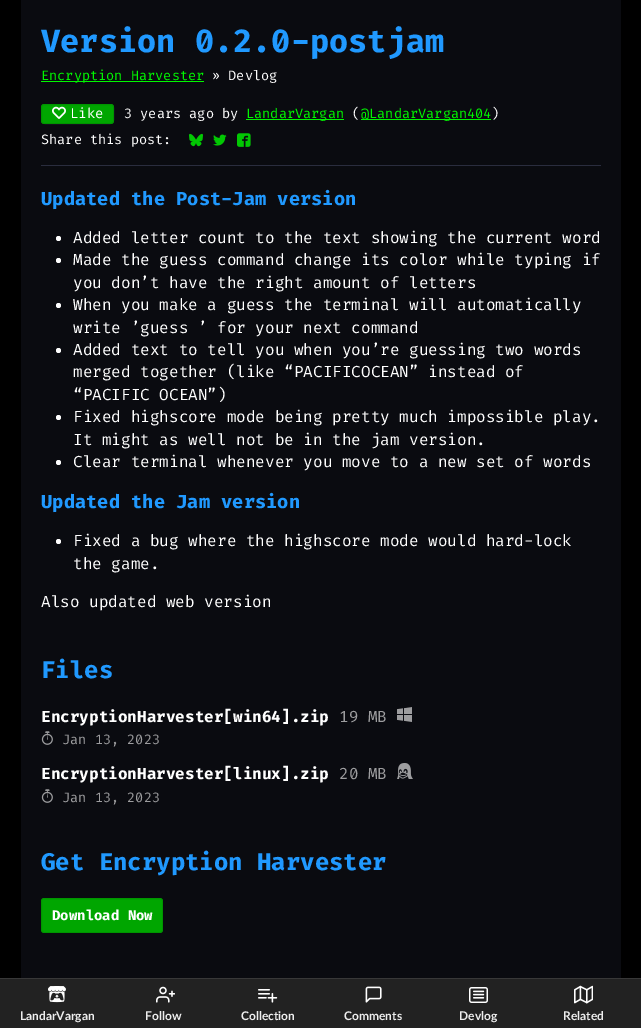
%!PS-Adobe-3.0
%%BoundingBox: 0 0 641 1028
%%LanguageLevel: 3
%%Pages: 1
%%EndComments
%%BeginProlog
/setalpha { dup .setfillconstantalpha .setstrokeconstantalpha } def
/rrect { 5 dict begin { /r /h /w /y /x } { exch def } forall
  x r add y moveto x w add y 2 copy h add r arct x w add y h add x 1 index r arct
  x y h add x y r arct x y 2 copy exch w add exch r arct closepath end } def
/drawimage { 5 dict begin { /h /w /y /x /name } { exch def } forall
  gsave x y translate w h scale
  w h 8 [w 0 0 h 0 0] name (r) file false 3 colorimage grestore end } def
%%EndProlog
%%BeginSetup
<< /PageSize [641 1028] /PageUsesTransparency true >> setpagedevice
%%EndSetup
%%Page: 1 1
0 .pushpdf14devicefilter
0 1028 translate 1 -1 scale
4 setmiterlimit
0 setgray
0 0 641 1028 rectfill
0.039 0.043 0.063 setrgbcolor
21 0 600 978 rectfill
0 0.969 0 setrgbcolor
41 81 163 1 rectfill
0.165 0.176 0.243 setrgbcolor
41.5 104.5 72 19 3.5 rrect stroke
0 0.651 0 setrgbcolor
41 104 73 20 3 rrect fill
0.1 setalpha
0 setgray
41.5 104.5 72 19 2.5 rrect stroke
1 setalpha
(images/1.raw) 52 106 14 13 drawimage
0 0.969 0 setrgbcolor
246 119 98 1 rectfill
361 119 130 1 rectfill
(images/2.raw) 189 133 14 14 drawimage
(images/3.raw) 213 134 14 12 drawimage
(images/4.raw) 237 133 14 14 drawimage
0.165 0.176 0.243 setrgbcolor
41 165 560 1 rectfill
1 setgray
newpath 58.5 238.5 2.5 0 360 arc closepath fill
newpath 58.5 260.5 2.5 0 360 arc closepath fill
newpath 58.5 305.5 2.5 0 360 arc closepath fill
newpath 58.5 350.5 2.5 0 360 arc closepath fill
newpath 58.5 417.5 2.5 0 360 arc closepath fill
newpath 58.5 462.5 2.5 0 360 arc closepath fill
newpath 58.5 541.5 2.5 0 360 arc closepath fill
(images/5.raw) 397 707 15 15 drawimage
(images/6.raw) 41 731 12 14 drawimage
(images/7.raw) 397 763 16 16 drawimage
(images/6.raw) 41 789 12 14 drawimage
0 0.651 0 setrgbcolor
41 898 122 35 3 rrect fill
0.1 setalpha
0 setgray
41.5 898.5 121 34 2.5 rrect stroke
1 setalpha
0.133 setgray
0 979 641 49 rectfill
0.22 setgray
0 978 641 1 rectfill
(images/8.raw) 48 986 18 17 drawimage
(images/9.raw) 156 986 19 17 drawimage
(images/10.raw) 258 989 20 14 drawimage
(images/11.raw) 365 986 17 17 drawimage
(images/12.raw) 469 987 19 16 drawimage
(images/13.raw) 574 985 19 19 drawimage
/FiraCode-Bold [32 0 0 -32 0 0] selectfont
0.125 0.6 1 setrgbcolor
41 52 moveto (Version 0.2.0-postjam) show
/FiraCode-Regular [13.6 0 0 -13.6 0 0] selectfont
0 0.969 0 setrgbcolor
41 80 moveto (Encryption Harvester) show
1 setgray
212 80 moveto (» Devlog) show
/FiraCode-Regular [14 0 0 -14 0 0] selectfont
70 118 moveto (Like) show
/FiraCode-Regular [13.6 0 0 -13.6 0 0] selectfont
124 118 moveto (3 years ago by) show
0 0.969 0 setrgbcolor
246 118 moveto (LandarVargan) show
1 setgray
352 118 moveto (\() show
0 0.969 0 setrgbcolor
361 118 moveto (@LandarVargan404) show
1 setgray
491 118 moveto (\)) show
41 144 moveto (Share this post:) show
/FiraCode-Bold [18.75 0 0 -18.75 0 0] selectfont
0.125 0.6 1 setrgbcolor
41 205 moveto (Updated the Post-Jam version) show
/FiraCode-Regular [16 0 0 -16 0 0] selectfont
1 setgray
73 243 moveto (Added letter count to the text showing the current word) show
73 265 moveto (Made the guess command change its color while typing if) show
73 288 moveto (you don’t have the right amount of letters) show
73 310 moveto (When you make a guess the terminal will automatically) show
73 333 moveto (write ’guess ’ for your next command) show
73 355 moveto (Added text to tell you when you’re guessing two words) show
73 377 moveto (merged together \(like “PACIFICOCEAN” instead of) show
73 400 moveto (“PACIFIC OCEAN”\)) show
73 422 moveto (Fixed highscore mode being pretty much impossible play.) show
73 445 moveto (It might as well not be in the jam version.) show
73 467 moveto (Clear terminal whenever you move to a new set of words) show
/FiraCode-Bold [18.75 0 0 -18.75 0 0] selectfont
0.125 0.6 1 setrgbcolor
41 508 moveto (Updated the Jam version) show
/FiraCode-Regular [16 0 0 -16 0 0] selectfont
1 setgray
73 546 moveto (Fixed a bug where the highscore mode would hard-lock) show
73 569 moveto (the game.) show
41 607 moveto (Also updated web version) show
/FiraCode-Bold [24 0 0 -24 0 0] selectfont
0.125 0.6 1 setrgbcolor
41 678 moveto (Files) show
/FiraCode-Bold [16 0 0 -16 0 0] selectfont
1 setgray
41 722 moveto (EncryptionHarvester[win64].zip) show
/FiraCode-Regular [16 0 0 -16 0 0] selectfont
0.616 0.616 0.624 setrgbcolor
339 722 moveto (19 MB) show
/FiraCode-Regular [13.6 0 0 -13.6 0 0] selectfont
62 744 moveto (Jan 13, 2023) show
/FiraCode-Bold [16 0 0 -16 0 0] selectfont
1 setgray
41 779 moveto (EncryptionHarvester[linux].zip) show
/FiraCode-Regular [16 0 0 -16 0 0] selectfont
0.616 0.616 0.624 setrgbcolor
339 779 moveto (20 MB) show
/FiraCode-Regular [13.6 0 0 -13.6 0 0] selectfont
62 802 moveto (Jan 13, 2023) show
/FiraCode-Bold [24 0 0 -24 0 0] selectfont
0.125 0.6 1 setrgbcolor
41 870 moveto (Get Encryption Harvester) show
/FiraCode-Bold [14 0 0 -14 0 0] selectfont
1 setgray
52 920 moveto (Download Now) show
/Lato-Bold [12 0 0 -12 0 0] selectfont
0.933 setgray
20 1020 moveto (LandarVargan) show
145 1020 moveto (Follow) show
241 1020 moveto (Collection) show
344 1020 moveto (Comments) show
459 1020 moveto (Devlog) show
563 1020 moveto (Related) show
.poppdf14devicefilter showpage
%%EOF
